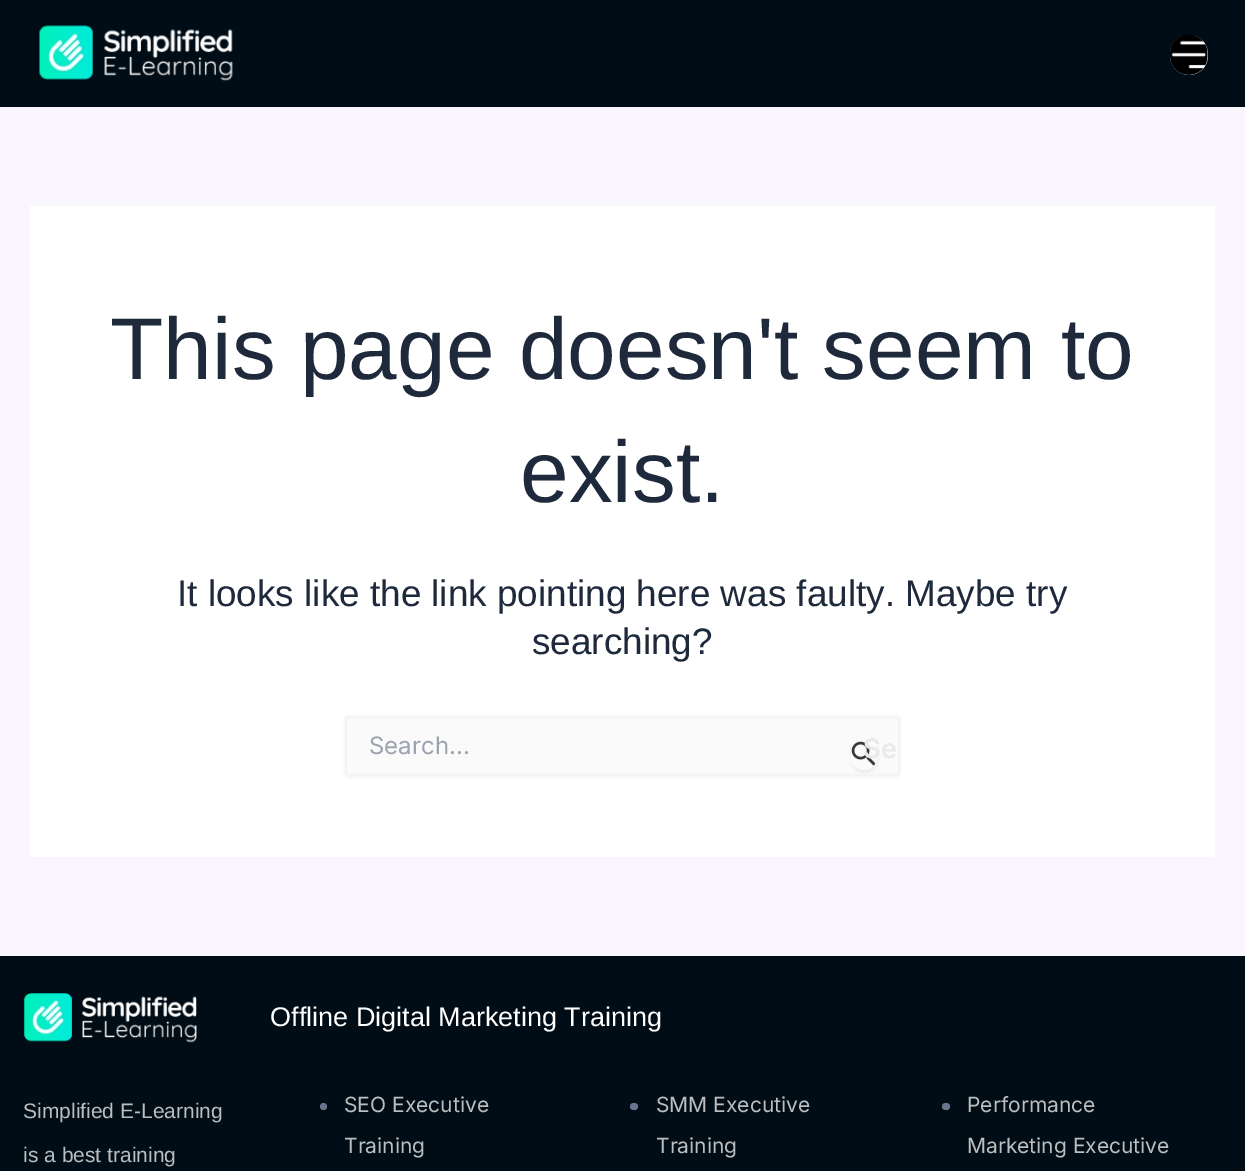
%!PS-Adobe-3.0
%%BoundingBox: 0 0 1245 1171
%%LanguageLevel: 3
%%Pages: 1
%%EndComments
%%BeginProlog
/setalpha { dup .setfillconstantalpha .setstrokeconstantalpha } def
/rrect { 5 dict begin { /r /h /w /y /x } { exch def } forall
  x r add y moveto x w add y 2 copy h add r arct x w add y h add x 1 index r arct
  x y h add x y r arct x y 2 copy exch w add exch r arct closepath end } def
/softshadow { 12 dict begin { /a /b /q /h /w /y /x } { exch def } forall gsave /was 0 def
  9 -2 -9 { dup b mul 4 div /e exch def 1 sub .425 mul 2.718 exch exp 1 add a .99 .min exch div /now exch def
    1 1 now sub 1 was sub div sub setalpha /was now def
    w h .min e 2 mul add 0 gt { x e sub y e sub w e 2 mul add h e 2 mul add
      q e add b .6 mul add w h .min 2 div e add .min 0 .max rrect fill } if } for grestore end } def
/drawimage { 5 dict begin { /h /w /y /x /name } { exch def } forall
  gsave x y translate w h scale
  w h 8 [w 0 0 h 0 0] name (r) file false 3 colorimage grestore end } def
%%EndProlog
%%BeginSetup
<< /PageSize [1245 1171] /PageUsesTransparency true >> setpagedevice
%%EndSetup
%%Page: 1 1
0 .pushpdf14devicefilter
0 1171 translate 1 -1 scale
4 setmiterlimit
0.976 0.965 0.996 setrgbcolor
0 0 1245 1171 rectfill
0.004 0.051 0.086 setrgbcolor
0 0 1245 107 rectfill
(images/1.raw) 39 25 194 56 drawimage
1 setgray
1170 35 38 40 19 rrect fill
(images/2.raw) 1170 34 38 41 drawimage
30 206 1185 651 rectfill
0 setgray
345 717 555 60 3 1.5 0.05 softshadow
0.98 setgray
346 717 553 58 2 rrect gsave fill grestore
0.949 0.961 0.969 setrgbcolor
2 setlinewidth
stroke
gsave
newpath 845 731 moveto 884 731 lineto 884 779 lineto 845 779 lineto closepath 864.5 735 moveto 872 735 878 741 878 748.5 curveto 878 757.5 lineto 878 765 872 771 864.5 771 curveto 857 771 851 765 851 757.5 curveto 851 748.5 lineto 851 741 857 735 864.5 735 curveto closepath eoclip newpath
0 setgray
851 737 27 36 13.5 1.5 0.05 softshadow
grestore
(images/3.raw) 851 741 24 25 drawimage
0.004 0.051 0.086 setrgbcolor
0 956 1245 215 rectfill
(images/4.raw) 24 993 173 50 drawimage
0.404 0.463 0.557 setrgbcolor
newpath 323.5 1106.5 3.5 0 360 arc closepath fill
630 1103 8 7 3.5 rrect fill
942 1103 8 7 3.5 rrect fill
/LiberationSans-Regular [87.5 0 0 -87.5 0 0] selectfont
0.118 0.161 0.231 setrgbcolor
110 379 moveto (This page doesn't seem to) show
520 502 moveto (exist.) show
/LiberationSans-Regular [36.9 0 0 -36.9 0 0] selectfont
177 606 moveto (It looks like the link pointing here was faulty. Maybe try) show
532 654 moveto (searching?) show
/Inter-Regular [24 0 0 -24 0 0] selectfont
0.612 0.639 0.686 setrgbcolor
369 754 moveto (Search...) show
/Inter-SemiBold [27 0 0 -27 0 0] selectfont
0.91 0.914 0.914 setrgbcolor
863 758 moveto (Se) show
/LiberationSans-Regular [21 0 0 -21 0 0] selectfont
0.729 0.745 0.753 setrgbcolor
23 1118 moveto (Simplified E-Learning) show
23 1162 moveto (is a best training) show
/LiberationSans-Regular [27 0 0 -27 0 0] selectfont
1 setgray
270 1026 moveto (Offline Digital Marketing Training) show
/Inter-Regular [21 0 0 -21 0 0] selectfont
0.729 0.745 0.753 setrgbcolor
344 1112 moveto (SEO Executive) show
344 1153 moveto (Training) show
656 1112 moveto (SMM Executive) show
656 1153 moveto (Training) show
967 1112 moveto (Performance) show
967 1153 moveto (Marketing Executive) show
.poppdf14devicefilter showpage
%%EOF
